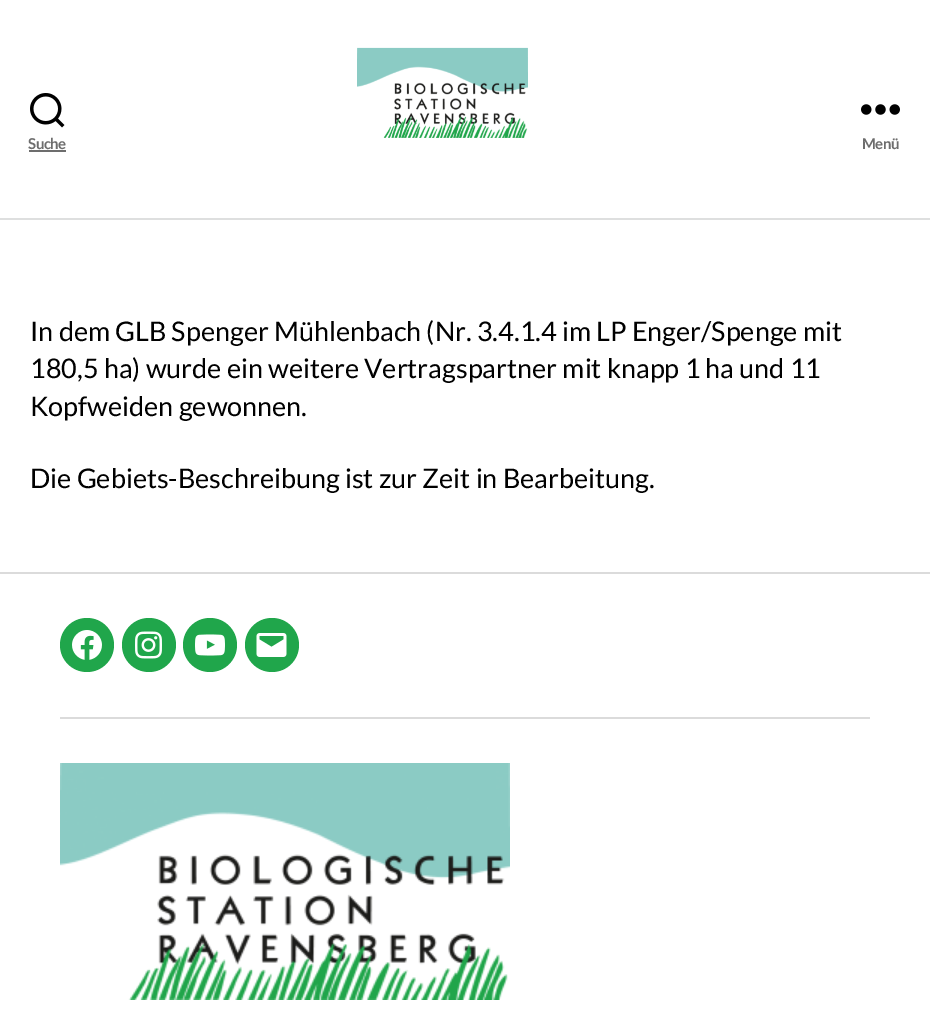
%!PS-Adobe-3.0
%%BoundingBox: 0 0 930 1020
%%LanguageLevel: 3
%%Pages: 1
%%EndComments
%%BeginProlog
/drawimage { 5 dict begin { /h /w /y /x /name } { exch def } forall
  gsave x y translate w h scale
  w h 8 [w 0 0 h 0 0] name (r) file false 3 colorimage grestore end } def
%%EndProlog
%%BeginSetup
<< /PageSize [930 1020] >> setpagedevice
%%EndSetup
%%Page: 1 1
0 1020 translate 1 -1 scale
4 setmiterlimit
1 setgray
0 0 930 1020 rectfill
0.871 0.875 0.875 setrgbcolor
0 218 930 2 rectfill
(images/1.raw) 357 47 171 91 drawimage
(images/2.raw) 30 93 35 35 drawimage
0.427 setgray
29 150 37 2 rectfill
(images/3.raw) 861 104 39 11 drawimage
0.859 setgray
0 572 930 2 rectfill
60 717 810 2 rectfill
0.125 0.651 0.294 setrgbcolor
newpath 87 645 27 0 360 arc closepath fill
(images/4.raw) 72 630 30 30 drawimage
newpath 149 645 27 0 360 arc closepath fill
(images/5.raw) 135 631 27 28 drawimage
newpath 210 645 27 0 360 arc closepath fill
(images/6.raw) 195 634 30 22 drawimage
newpath 272 645 27 0 360 arc closepath fill
(images/7.raw) 256 633 31 24 drawimage
(images/8.raw) 60 763 450 237 drawimage
/Lato-Bold [15 0 0 -15 0 0] selectfont
0.427 setgray
28 149 moveto -0.5 0 (Suche) ashow
862 149 moveto -0.5 0 (Menü) ashow
/Lato-Regular [27 0 0 -27 0 0] selectfont
0 setgray
30 341 moveto (In dem GLB Spenger Mühlenbach \(Nr. 3.4.1.4 im LP Enger/Spenge mit) show
30 378 moveto (180,5 ha\) wurde ein weitere Vertragspartner mit knapp 1 ha und 11) show
30 416 moveto (Kopfweiden gewonnen.) show
30 488 moveto (Die Gebiets-Beschreibung ist zur Zeit in Bearbeitung.) show
showpage
%%EOF
